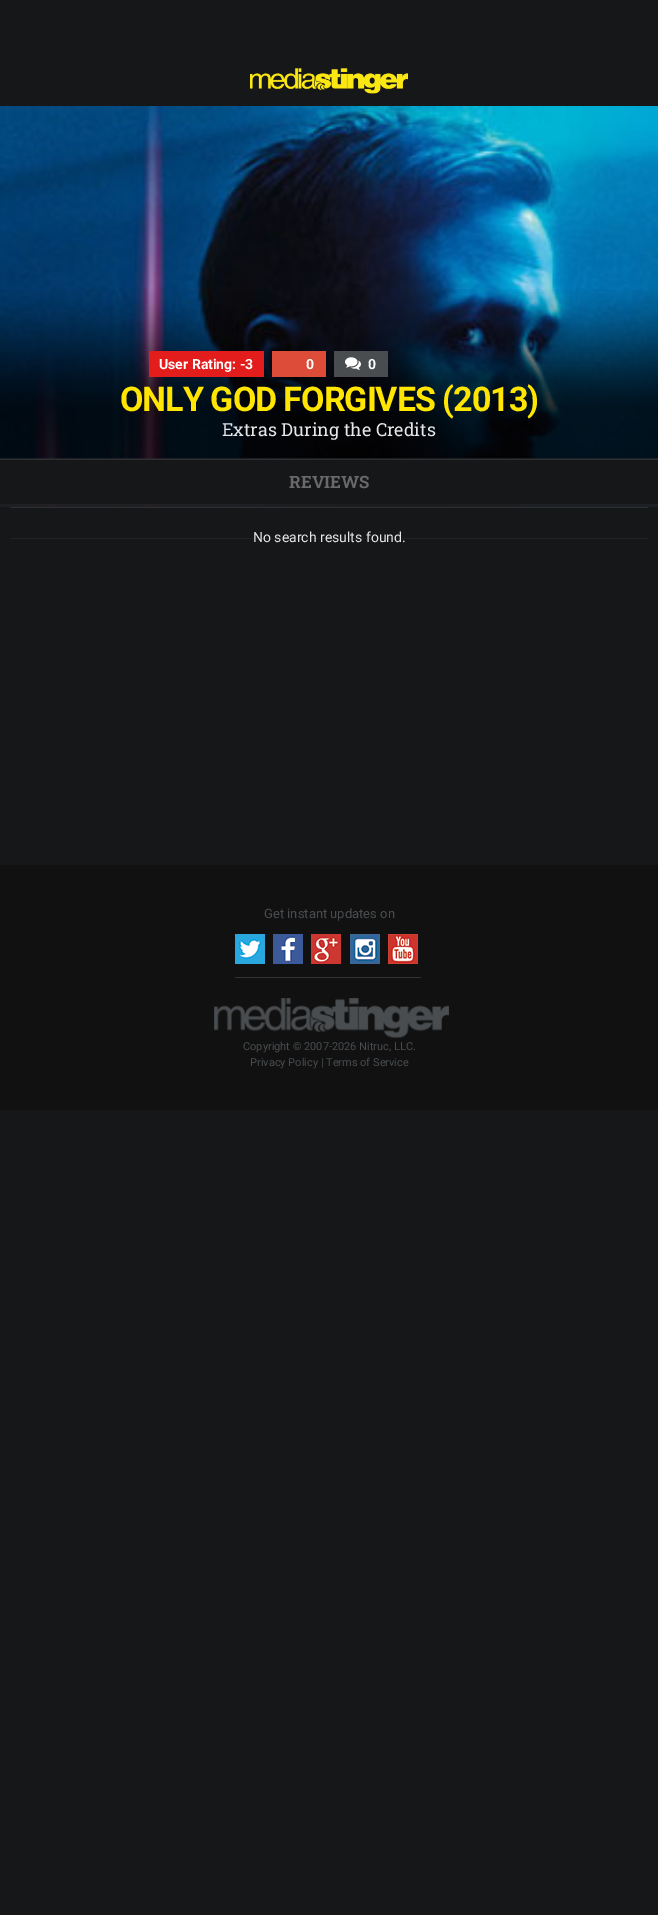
%!PS-Adobe-3.0
%%BoundingBox: 0 0 658 1915
%%LanguageLevel: 3
%%Pages: 1
%%EndComments
%%BeginProlog
/drawimage { 5 dict begin { /h /w /y /x /name } { exch def } forall
  gsave x y translate w h scale
  w h 8 [w 0 0 h 0 0] name (r) file false 3 colorimage grestore end } def
%%EndProlog
%%BeginSetup
<< /PageSize [658 1915] >> setpagedevice
%%EndSetup
%%Page: 1 1
0 1915 translate 1 -1 scale
4 setmiterlimit
0.086 0.09 0.094 setrgbcolor
0 0 658 1915 rectfill
(images/1.raw) 250 68 158 26 drawimage
(images/2.raw) 0 106 658 401 drawimage
(images/3.raw) 0 289 658 169 drawimage
0.89 0.11 0.11 setrgbcolor
149 351 115 26 rectfill
0.867 0.294 0.224 setrgbcolor
272 351 54 26 rectfill
0.286 0.302 0.314 setrgbcolor
334 351 54 26 rectfill
(images/4.raw) 345 357 16 13 drawimage
(images/5.raw) 0 458 658 49 drawimage
0.18 0.184 0.192 setrgbcolor
0 459 658 1 rectfill
0.086 0.09 0.094 setrgbcolor
0 460 658 44 rectfill
0.18 0.184 0.192 setrgbcolor
10 507 638 1 rectfill
0.133 setgray
10 538 638 1 rectfill
0.067 setgray
0 865 658 245 rectfill
0.2 setgray
235 977 186 1 rectfill
(images/6.raw) 235 934 30 30 drawimage
(images/7.raw) 273 934 30 30 drawimage
(images/8.raw) 311 934 30 30 drawimage
(images/9.raw) 350 934 30 30 drawimage
(images/10.raw) 388 934 30 30 drawimage
(images/11.raw) 214 998 235 40 drawimage
/Roboto-Bold [14 0 0 -14 0 0] selectfont
1 setgray
159 369 moveto (User Rating: -3) show
306 369 moveto (0) show
368 369 moveto (0) show
/Roboto-Bold [34 0 0 -34 0 0] selectfont
1 0.898 0 setrgbcolor
120 411 moveto -1 0 (ONLY GOD FORGIVES \(2013\)) ashow
/RobotoSlab-Regular [18 0 0 -18 0 0] selectfont
0.894 0.902 0.906 setrgbcolor
222 436 moveto (Extras During the Credits) show
/RobotoSlab-Bold [17 0 0 -17 0 0] selectfont
0.412 0.408 0.416 setrgbcolor
289 488 moveto (REVIEWS) show
/Roboto-Regular [14 0 0 -14 0 0] selectfont
0.894 0.902 0.906 setrgbcolor
253 542 moveto (No search results found.) show
/Roboto-Regular [13 0 0 -13 0 0] selectfont
0.286 0.302 0.314 setrgbcolor
264 918 moveto (Get instant updates on) show
/Roboto-Regular [11 0 0 -11 0 0] selectfont
243 1050 moveto (Copyright © 2007-2026 Nitruc, LLC.) show
250 1066 moveto (Privacy Policy | Terms of Service) show
showpage
%%EOF
